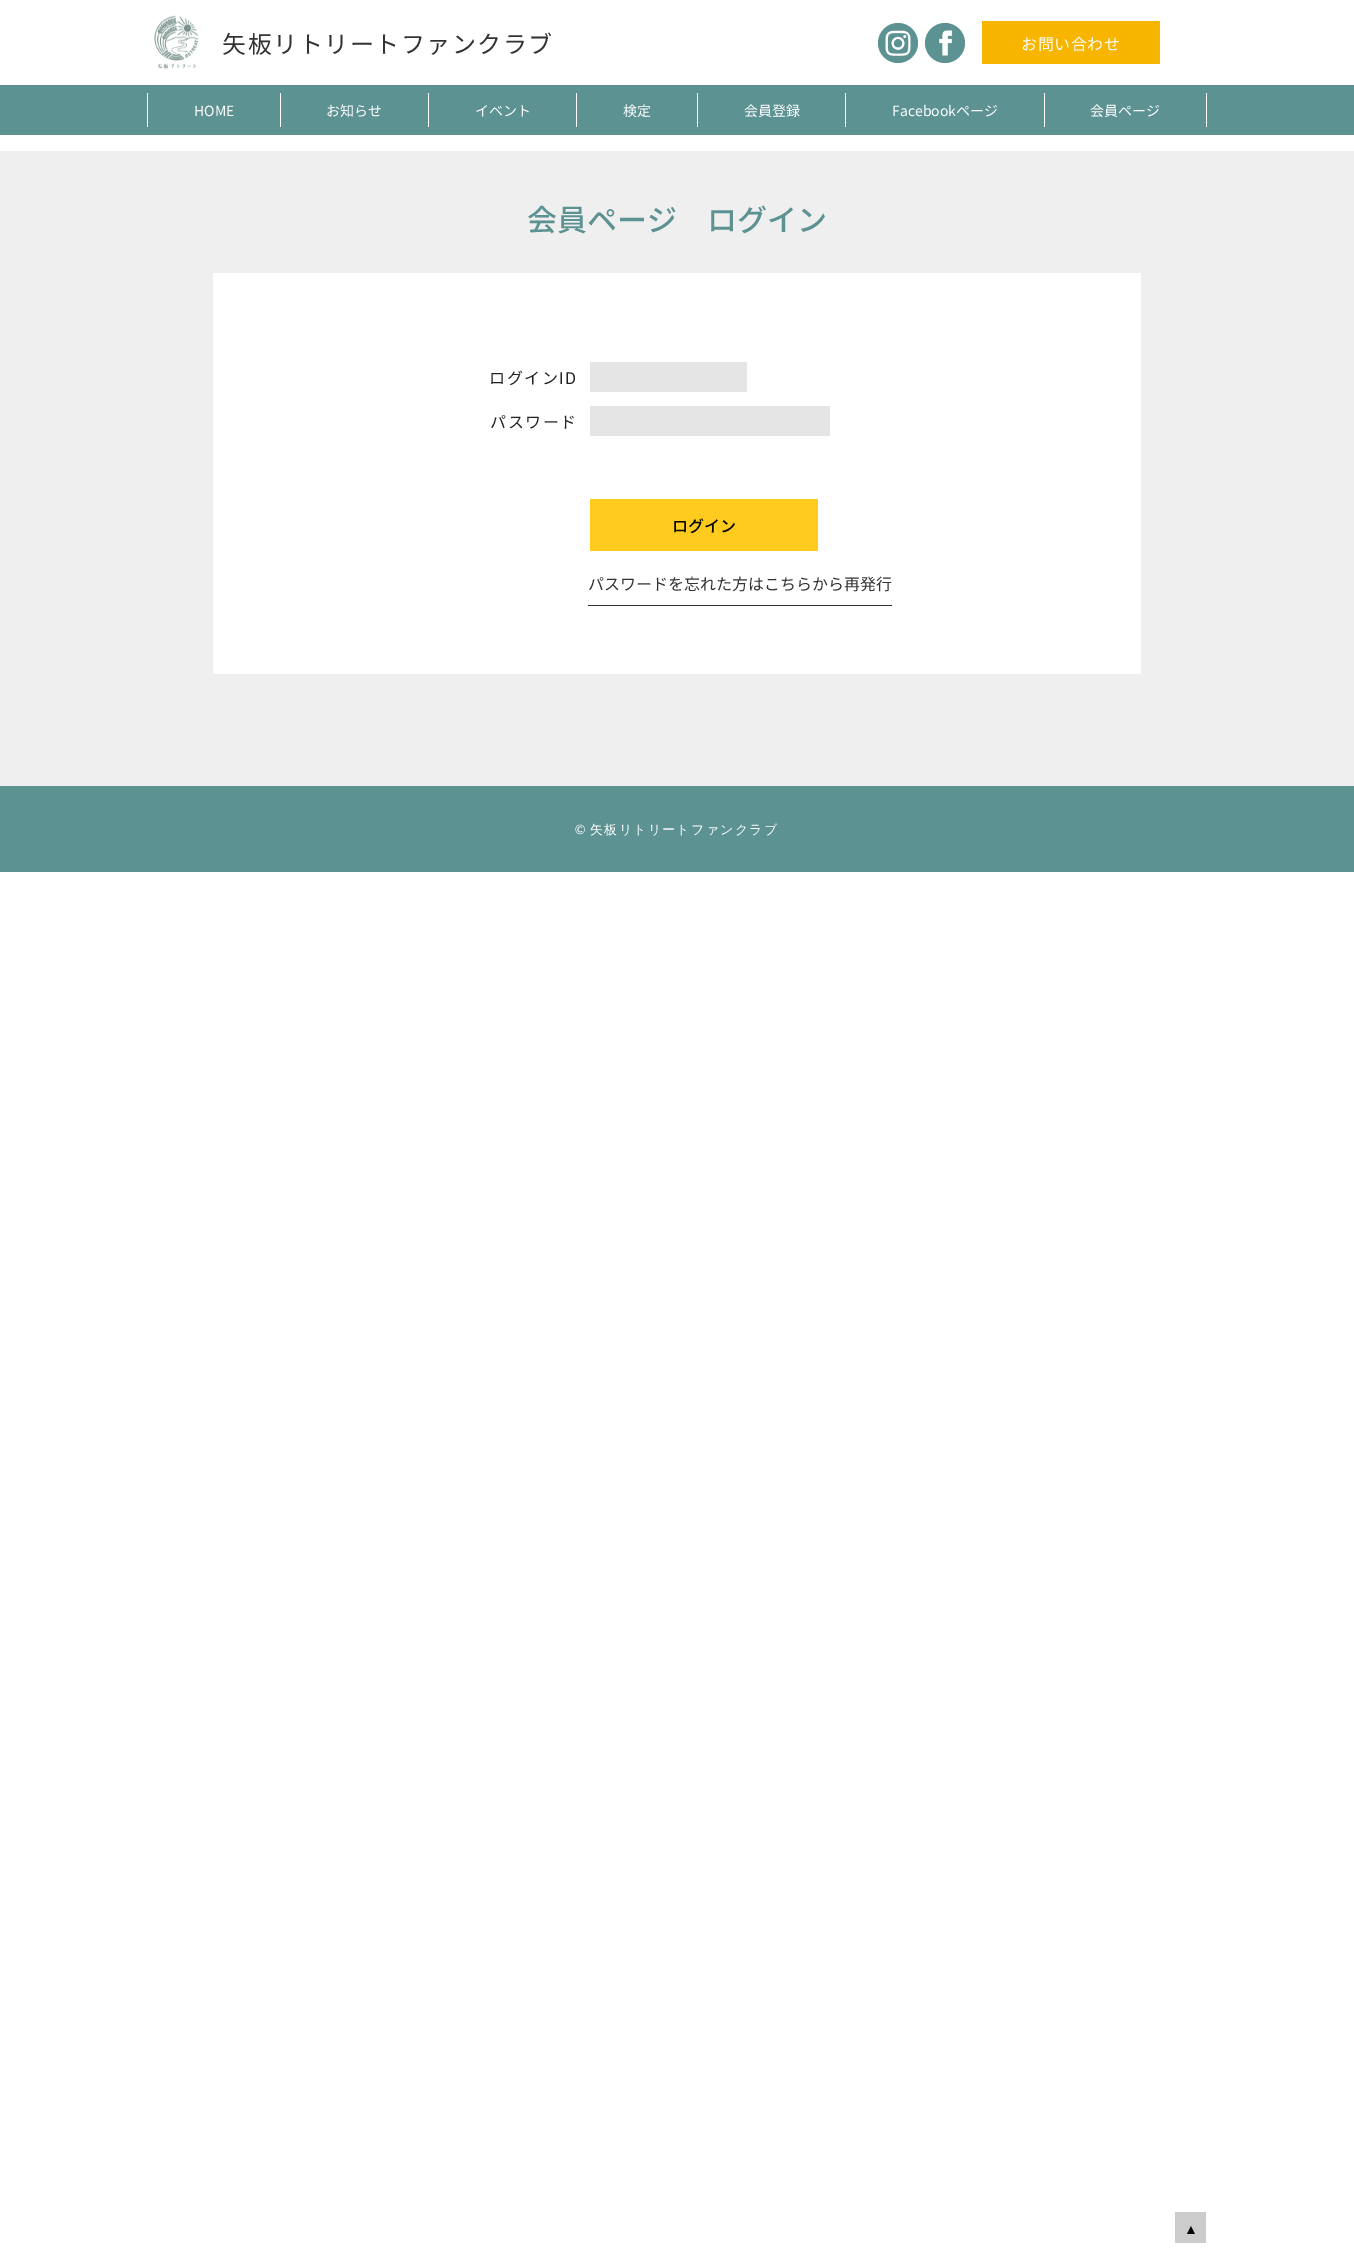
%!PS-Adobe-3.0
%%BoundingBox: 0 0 1354 2253
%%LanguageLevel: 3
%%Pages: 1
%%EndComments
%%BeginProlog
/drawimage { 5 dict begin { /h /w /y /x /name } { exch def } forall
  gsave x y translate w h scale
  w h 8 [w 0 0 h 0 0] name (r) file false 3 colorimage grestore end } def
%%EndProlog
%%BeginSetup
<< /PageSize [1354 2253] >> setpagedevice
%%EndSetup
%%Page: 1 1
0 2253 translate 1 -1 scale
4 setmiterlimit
1 setgray
0 0 1354 2253 rectfill
(images/1.raw) 154 15 45 54 drawimage
0.361 0.573 0.569 setrgbcolor
0 85 1354 50 rectfill
newpath 898 43 20 0 360 arc closepath fill
(images/2.raw) 885 30 26 26 drawimage
newpath 945 43 20 0 360 arc closepath fill
(images/3.raw) 939 30 14 26 drawimage
0.973 0.71 0 setrgbcolor
982 21 178 43 rectfill
1 setgray
280 93 1 34 rectfill
147 93 1 34 rectfill
428 93 1 34 rectfill
576 93 1 34 rectfill
697 93 1 34 rectfill
845 93 1 34 rectfill
1044 93 1 34 rectfill
1206 93 1 34 rectfill
0.937 setgray
0 151 1354 635 rectfill
1 setgray
213 273 928 401 rectfill
0.902 0.898 0.898 setrgbcolor
590 362 157 30 rectfill
590 406 240 30 rectfill
1 0.796 0.122 setrgbcolor
590 499 228 52 rectfill
0.2 setgray
588 605 304 1 rectfill
0.361 0.573 0.569 setrgbcolor
0 786 1354 86 rectfill
0.8 setgray
1175 2212 31 31 rectfill
/NotoSansJP-Regular [24 0 0 -24 0 0] selectfont
0.2 setgray
222 53 moveto 1.5 0 (矢板リトリートファンクラブ) ashow
/NotoSansJP-Regular [16 0 0 -16 0 0] selectfont
1 setgray
1021 50 moveto 0.5 0 (お問い合わせ) ashow
/NotoSansJP-Regular [14 0 0 -14 0 0] selectfont
194 116 moveto (HOME) show
326 116 moveto (お知らせ) show
475 116 moveto (イベント) show
623 116 moveto (検定) show
744 116 moveto (会員登録) show
892 116 moveto (Facebookページ) show
1090 116 moveto (会員ページ) show
/NotoSansJP-Medium [30 0 0 -30 0 0] selectfont
0.361 0.573 0.569 setrgbcolor
527 231 moveto (会員ページ　ログイン) show
/NotoSansJP-Regular [16 0 0 -16 0 0] selectfont
0.133 setgray
489 384 moveto 1.5 0 (ログインID) ashow
490 428 moveto 1.5 0 (パスワード) ashow
/NotoSansJP-Medium [16 0 0 -16 0 0] selectfont
0 setgray
672 532 moveto (ログイン) show
/NotoSansJP-Regular [16 0 0 -16 0 0] selectfont
0.2 setgray
588 590 moveto (パスワードを忘れた方はこちらから再発行) show
/Lato-Regular [13 0 0 -13 0 0] selectfont
1 setgray
575 834 moveto 1.25 0 (©) ashow
/WenQuanYiZenHei-Medium [13 0 0 -13 0 0] selectfont
590 834 moveto 1.25 0 (矢板リトリートファンクラブ) ashow
/LiberationSans-Regular [14 0 0 -14 0 0] selectfont
0 setgray
1184 2234 moveto (▲) show
showpage
%%EOF
